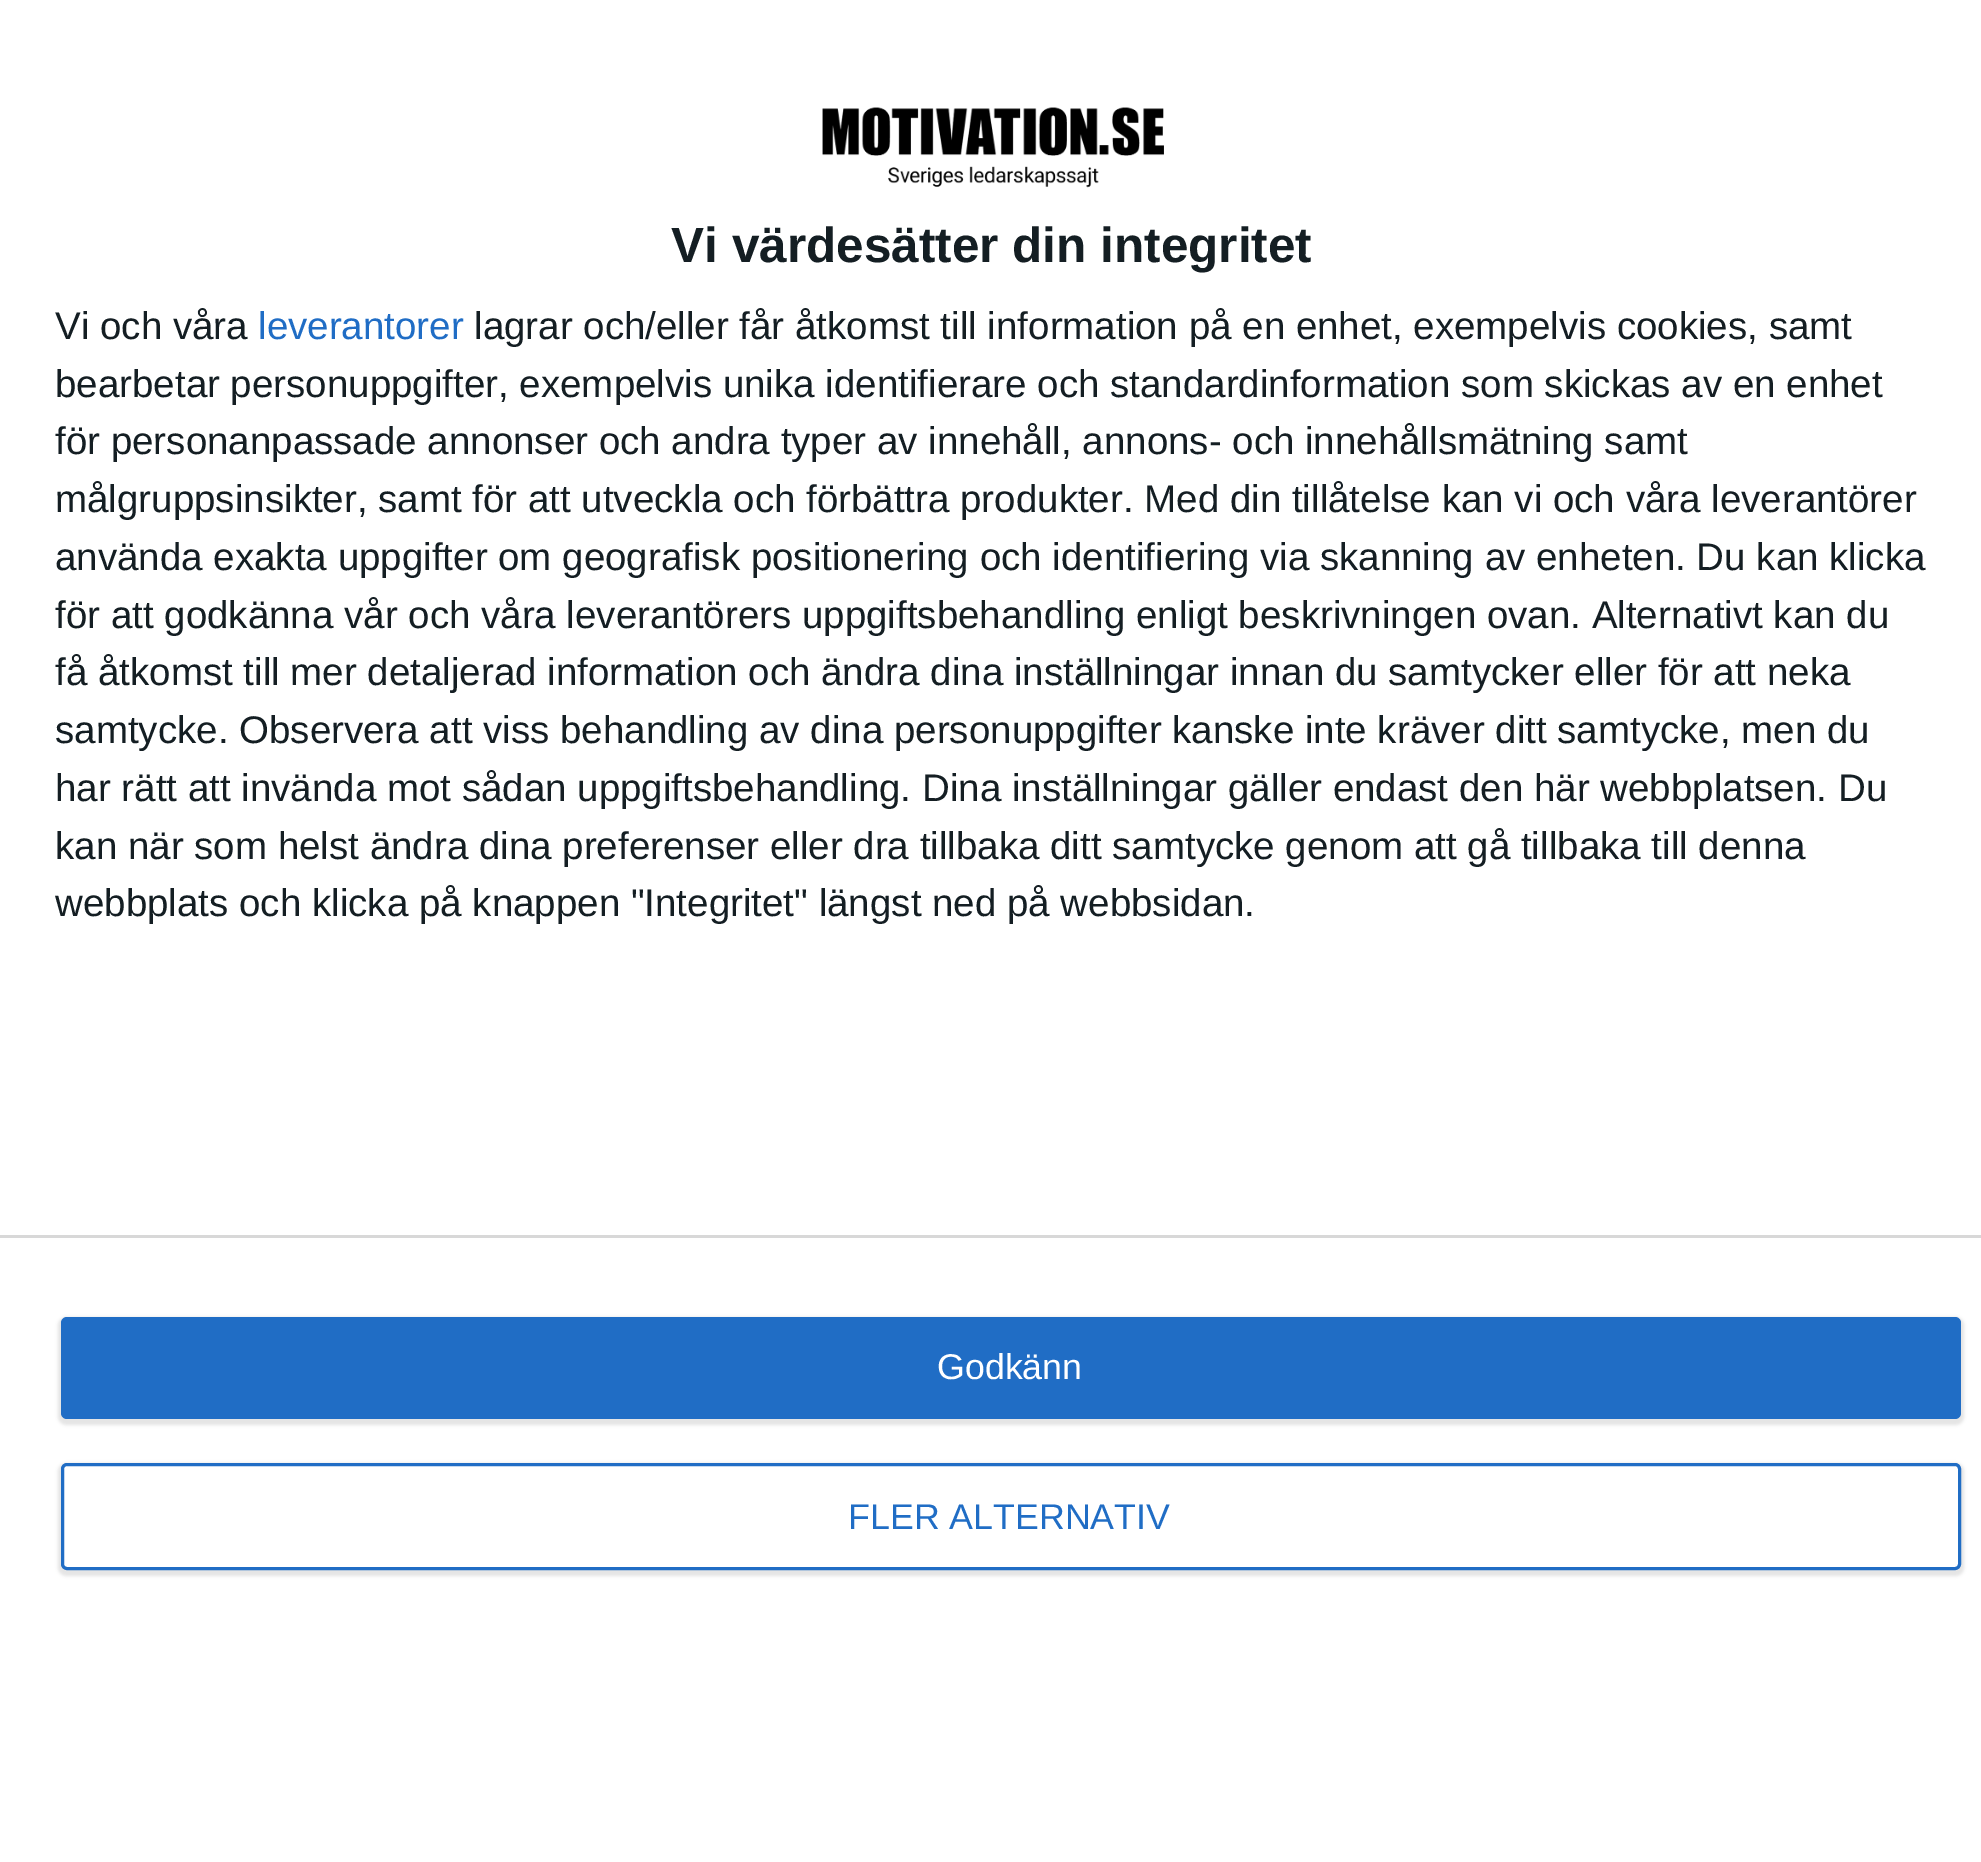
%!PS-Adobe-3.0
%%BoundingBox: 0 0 1981 1862
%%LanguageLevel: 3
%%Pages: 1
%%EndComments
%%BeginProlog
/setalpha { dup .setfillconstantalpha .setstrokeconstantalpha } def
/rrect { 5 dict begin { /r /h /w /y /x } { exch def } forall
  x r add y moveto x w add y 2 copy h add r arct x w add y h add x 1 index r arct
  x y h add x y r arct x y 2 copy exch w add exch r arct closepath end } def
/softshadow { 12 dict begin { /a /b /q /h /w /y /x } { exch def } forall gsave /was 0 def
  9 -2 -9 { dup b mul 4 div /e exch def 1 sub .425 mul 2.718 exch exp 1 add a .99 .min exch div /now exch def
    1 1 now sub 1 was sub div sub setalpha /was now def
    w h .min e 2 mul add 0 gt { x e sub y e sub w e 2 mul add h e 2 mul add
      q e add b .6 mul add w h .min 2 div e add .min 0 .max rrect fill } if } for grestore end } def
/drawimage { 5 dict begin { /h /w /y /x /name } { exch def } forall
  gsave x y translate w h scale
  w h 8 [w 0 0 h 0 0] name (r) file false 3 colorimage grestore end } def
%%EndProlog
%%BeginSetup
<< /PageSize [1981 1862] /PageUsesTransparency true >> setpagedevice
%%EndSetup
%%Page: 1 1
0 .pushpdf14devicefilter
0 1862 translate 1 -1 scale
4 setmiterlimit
1 setgray
0 0 1981 1862 rectfill
(images/1.raw) 822 107 342 81 drawimage
0.847 setgray
0 1235 1981 3 rectfill
0 setgray
58 1317 1906 108 8 1.5 0.1 softshadow
0.125 0.427 0.773 setrgbcolor
61 1317 1900 102 6 rrect fill
0 setgray
58 1463 1906 113 8 1.5 0.1 softshadow
1 setgray
62.5 1464.5 1897 104 4.5 rrect gsave fill grestore
0.125 0.427 0.773 setrgbcolor
3 setlinewidth
stroke
/LiberationSans-Bold [49.5 0 0 -49.5 0 0] selectfont
0.078 0.118 0.137 setrgbcolor
671 262 moveto (Vi värdesätter din integritet) show
/LiberationSans-Regular [38.5 0 0 -38.5 0 0] selectfont
55 339 moveto (Vi och våra) show
0.125 0.427 0.773 setrgbcolor
258 339 moveto (leverantorer) show
0.078 0.118 0.137 setrgbcolor
474 339 moveto (lagrar och/eller får åtkomst till information på en enhet, exempelvis cookies, samt) show
55 397 moveto (bearbetar personuppgifter, exempelvis unika identifierare och standardinformation som skickas av en enhet) show
55 454 moveto (för personanpassade annonser och andra typer av innehåll, annons- och innehållsmätning samt) show
55 512 moveto (målgruppsinsikter, samt för att utveckla och förbättra produkter. Med din tillåtelse kan vi och våra leverantörer) show
55 570 moveto (använda exakta uppgifter om geografisk positionering och identifiering via skanning av enheten. Du kan klicka) show
55 628 moveto (för att godkänna vår och våra leverantörers uppgiftsbehandling enligt beskrivningen ovan. Alternativt kan du) show
55 685 moveto (få åtkomst till mer detaljerad information och ändra dina inställningar innan du samtycker eller för att neka) show
55 743 moveto (samtycke. Observera att viss behandling av dina personuppgifter kanske inte kräver ditt samtycke, men du) show
55 801 moveto (har rätt att invända mot sådan uppgiftsbehandling. Dina inställningar gäller endast den här webbplatsen. Du) show
55 859 moveto (kan när som helst ändra dina preferenser eller dra tillbaka ditt samtycke genom att gå tillbaka till denna) show
55 916 moveto (webbplats och klicka på knappen "Integritet" längst ned på webbsidan.) show
/LiberationSans-Regular [35.75 0 0 -35.75 0 0] selectfont
1 setgray
937 1379 moveto (Godkänn) show
0.125 0.427 0.773 setrgbcolor
848 1529 moveto (FLER ALTERNATIV) show
.poppdf14devicefilter showpage
%%EOF
